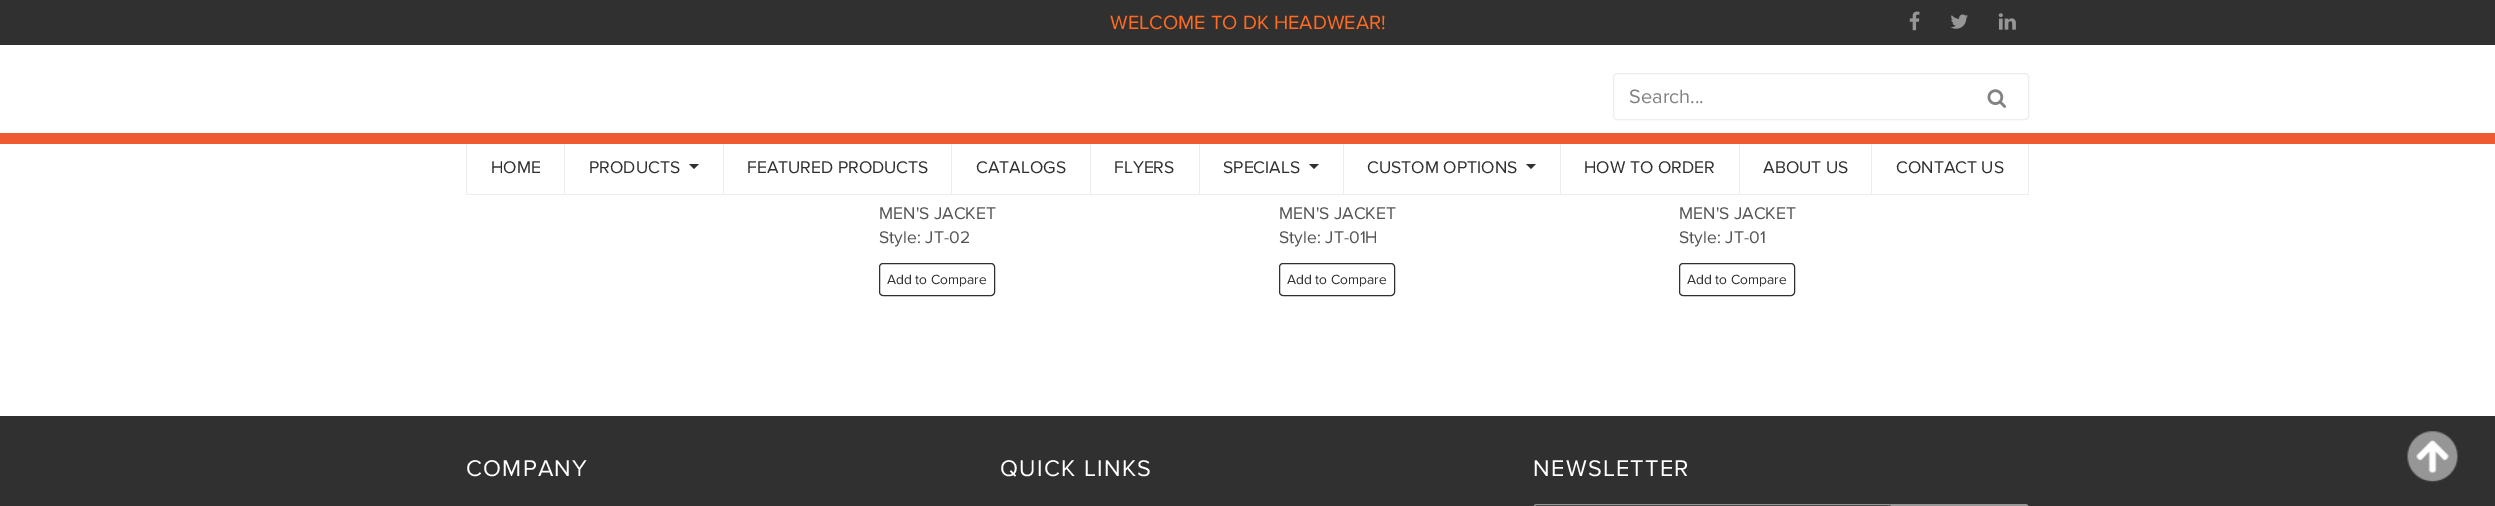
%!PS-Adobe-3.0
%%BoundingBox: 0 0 2495 506
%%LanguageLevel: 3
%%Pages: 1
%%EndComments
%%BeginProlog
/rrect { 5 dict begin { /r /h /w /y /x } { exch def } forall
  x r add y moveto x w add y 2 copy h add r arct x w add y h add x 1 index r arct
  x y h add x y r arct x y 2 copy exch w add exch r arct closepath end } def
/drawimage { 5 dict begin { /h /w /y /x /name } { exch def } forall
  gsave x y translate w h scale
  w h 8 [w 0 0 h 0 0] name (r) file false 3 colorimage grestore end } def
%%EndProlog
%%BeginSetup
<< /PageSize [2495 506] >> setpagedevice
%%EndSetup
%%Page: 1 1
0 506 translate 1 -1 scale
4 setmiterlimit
1 setgray
0 0 2495 506 rectfill
0.188 setgray
0 0 2495 45 rectfill
(images/1.raw) 1909 11 11 20 drawimage
(images/2.raw) 1950 14 18 15 drawimage
(images/3.raw) 1998 13 18 17 drawimage
0.929 setgray
1613.5 73.5 415 46 3.5 rrect stroke
(images/4.raw) 1987 89 19 19 drawimage
0.941 0.353 0.188 setrgbcolor
0 133 2495 11 rectfill
0.929 setgray
2028 144 1 51 rectfill
466 194 1563 1 rectfill
466 144 1 50 rectfill
564 144 1 50 rectfill
0.188 setgray
newpath 689 164 moveto 699 164 lineto 694 169 lineto closepath fill
0.929 setgray
723 144 1 50 rectfill
951 144 1 50 rectfill
1090 144 1 50 rectfill
1199 144 1 50 rectfill
0.188 setgray
newpath 1309 164 moveto 1319 164 lineto 1314 169 lineto closepath fill
0.929 setgray
1343 144 1 50 rectfill
0.188 setgray
newpath 1526 164 moveto 1536 164 lineto 1531 169 lineto closepath fill
0.929 setgray
1560 144 1 50 rectfill
1739 144 1 50 rectfill
1871 144 1 50 rectfill
0.188 setgray
879.5 263.5 115 32 3.5 rrect stroke
1279.5 263.5 115 32 3.5 rrect stroke
1679.5 263.5 115 32 3.5 rrect stroke
0 416 2495 90 rectfill
(images/5.raw) 2407 431 51 51 drawimage
0.588 setgray
1533.5 504.5 359 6 3.5 rrect stroke
newpath 1891.5 504.5 moveto 2025 504.5 lineto 2027 504.5 2028.5 506 2028.5 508 curveto 2028.5 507 lineto 2028.5 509 2027 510.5 2025 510.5 curveto 1891.5 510.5 lineto closepath gsave fill grestore
stroke
/ProximaNova-Regular [20 0 0 -20 0 0] selectfont
1 0.42 0.129 setrgbcolor
1110 29 moveto (WELCOME TO DK HEADWEAR!) show
0.51 setgray
1629 103 moveto (Search...) show
/ProximaNova-Regular [17.5 0 0 -17.5 0 0] selectfont
0.188 setgray
491 173 moveto (HOME) show
589 173 moveto (PRODUCTS) show
747 173 moveto (FEATURED PRODUCTS) show
976 173 moveto (CATALOGS) show
1114 173 moveto (FLYERS) show
1223 173 moveto (SPECIALS) show
1367 173 moveto (CUSTOM OPTIONS) show
1584 173 moveto (HOW TO ORDER) show
1763 173 moveto (ABOUT US) show
1896 173 moveto (CONTACT US) show
0.333 setgray
879 219 moveto (MEN'S JACKET) show
879 243 moveto (Style: JT-02) show
/ProximaNova-Regular [13.75 0 0 -13.75 0 0] selectfont
0.188 setgray
887 284 moveto (Add to Compare) show
/ProximaNova-Regular [17.5 0 0 -17.5 0 0] selectfont
0.333 setgray
1279 219 moveto (MEN'S JACKET) show
1279 243 moveto (Style: JT-01H) show
/ProximaNova-Regular [13.75 0 0 -13.75 0 0] selectfont
0.188 setgray
1287 284 moveto (Add to Compare) show
/ProximaNova-Regular [17.5 0 0 -17.5 0 0] selectfont
0.333 setgray
1679 219 moveto (MEN'S JACKET) show
1679 243 moveto (Style: JT-01) show
/ProximaNova-Regular [13.75 0 0 -13.75 0 0] selectfont
0.188 setgray
1687 284 moveto (Add to Compare) show
/ProximaNova-Regular [23.5 0 0 -23.5 0 0] selectfont
1 setgray
466 476 moveto 1.25 0 (COMPANY) ashow
1000 476 moveto 1.25 0 (QUICK LINKS) ashow
1533 476 moveto 1.25 0 (NEWSLETTER) ashow
showpage
%%EOF
